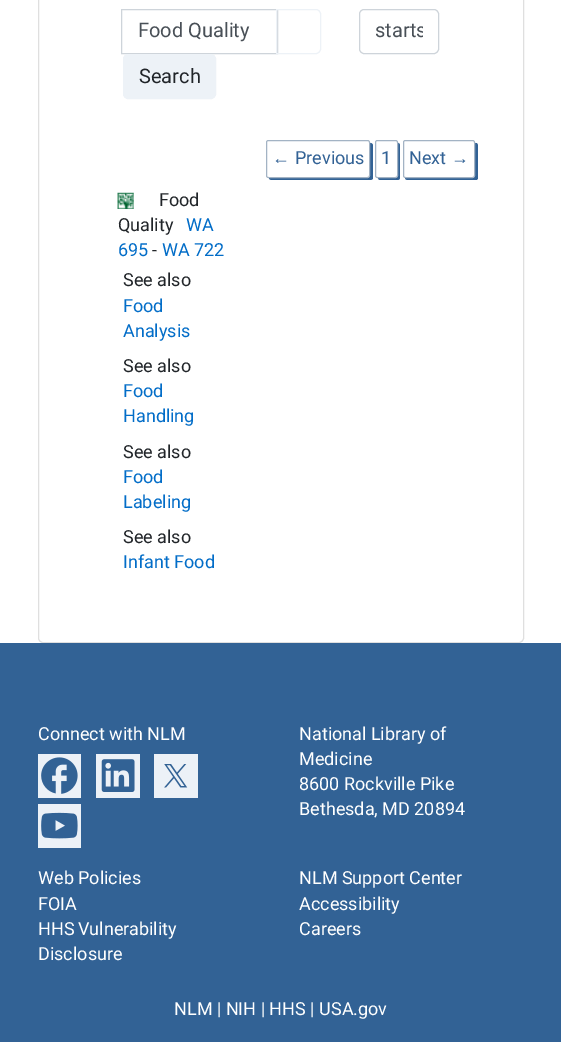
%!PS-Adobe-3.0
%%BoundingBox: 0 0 561 1042
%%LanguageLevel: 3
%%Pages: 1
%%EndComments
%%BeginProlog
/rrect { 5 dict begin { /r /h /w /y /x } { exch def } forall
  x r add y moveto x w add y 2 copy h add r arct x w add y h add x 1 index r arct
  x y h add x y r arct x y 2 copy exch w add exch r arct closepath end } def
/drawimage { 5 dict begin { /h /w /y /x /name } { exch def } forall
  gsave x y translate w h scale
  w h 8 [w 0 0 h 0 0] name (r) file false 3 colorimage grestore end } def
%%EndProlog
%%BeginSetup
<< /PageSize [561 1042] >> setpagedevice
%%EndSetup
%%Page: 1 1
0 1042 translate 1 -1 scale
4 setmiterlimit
1 setgray
0 0 561 1042 rectfill
0.875 setgray
38.5 -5.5 485 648 4.5 rrect stroke
0.808 0.831 0.855 setrgbcolor
121.5 9.5 156 44 rectstroke
0.929 0.949 0.969 setrgbcolor
newpath 276.5 9.5 moveto 316 9.5 lineto 318.5 9.5 320.5 11.5 320.5 14 curveto 320.5 49 lineto 320.5 51.5 318.5 53.5 316 53.5 curveto 276.5 53.5 lineto closepath stroke
0.808 0.831 0.855 setrgbcolor
359.5 9.5 79 44 4.5 rrect stroke
0.929 0.949 0.969 setrgbcolor
123.5 54.5 92 44 4.5 rrect gsave fill grestore
stroke
0.196 0.384 0.584 setrgbcolor
newpath 269 178 moveto 269 179 270 180 272 180 curveto 370 180 lineto 372 180 373 179 373 178 curveto 373 146 lineto 373 144 372 143 370 143 curveto 370 175 lineto 370 176 369 178 368 178 curveto closepath fill
1 setgray
266.5 140.5 103 37 2 rrect gsave fill grestore
0.639 0.702 0.769 setrgbcolor
stroke
0.196 0.384 0.584 setrgbcolor
newpath 378 177.5 moveto 378 179 379 180 380.5 180 curveto 397.5 180 lineto 399 180 400 179 400 177.5 curveto 400 145.5 lineto 400 144 399 143 397.5 143 curveto 397.5 175 lineto 397.5 176.5 396.5 177.5 395 177.5 curveto closepath fill
1 setgray
375.5 140.5 22 37 2 rrect gsave fill grestore
0.639 0.702 0.769 setrgbcolor
stroke
0.196 0.384 0.584 setrgbcolor
newpath 405 178 moveto 405 179 406 180 408 180 curveto 476 180 lineto 477 180 478 179 478 178 curveto 478 146 lineto 478 144 477 143 476 143 curveto 475 143 lineto 475 175 lineto 475 176 474 178 472 178 curveto closepath fill
1 setgray
403.5 140.5 71 37 2 rrect gsave fill grestore
0.639 0.702 0.769 setrgbcolor
stroke
(images/1.raw) 117 192 17 17 drawimage
0.196 0.384 0.584 setrgbcolor
0 643 561 399 rectfill
0.925 0.945 0.969 setrgbcolor
38 754 43 44 rectfill
(images/2.raw) 41 757 37 37 drawimage
96 754 44 44 rectfill
(images/3.raw) 101 759 34 33 drawimage
154 754 44 44 rectfill
(images/4.raw) 164 764 24 24 drawimage
38 804 43 44 rectfill
(images/5.raw) 41 812 37 27 drawimage
/Roboto-Regular [20 0 0 -20 0 0] selectfont
0.286 0.314 0.341 setrgbcolor
138 37 moveto (Food Quality) show
gsave
375 18 48 27 rectclip
375 37 moveto (starts) show
grestore
0.129 0.145 0.161 setrgbcolor
139 83 moveto (Search) show
/LiberationSans-Regular [18 0 0 -18 0 0] selectfont
0.196 0.384 0.584 setrgbcolor
272 164 moveto (←) show
/Roboto-Regular [18 0 0 -18 0 0] selectfont
295 164 moveto (Previous) show
381 164 moveto (1) show
409 164 moveto (Next) show
/LiberationSans-Regular [18 0 0 -18 0 0] selectfont
451 164 moveto (→) show
/Roboto-Regular [18 0 0 -18 0 0] selectfont
0.129 0.145 0.161 setrgbcolor
159 206 moveto (Food) show
118 231 moveto (Quality) show
0.008 0.427 0.784 setrgbcolor
186 231 moveto (WA) show
118 256 moveto (695) show
0.129 0.145 0.161 setrgbcolor
152 256 moveto (-) show
0.008 0.427 0.784 setrgbcolor
162 256 moveto (WA 722) show
0.129 0.145 0.161 setrgbcolor
123 286 moveto (See also) show
0.008 0.427 0.784 setrgbcolor
123 312 moveto (Food) show
123 337 moveto (Analysis) show
0.129 0.145 0.161 setrgbcolor
123 372 moveto (See also) show
0.008 0.427 0.784 setrgbcolor
123 397 moveto (Food) show
123 422 moveto (Handling) show
0.129 0.145 0.161 setrgbcolor
123 458 moveto (See also) show
0.008 0.427 0.784 setrgbcolor
123 483 moveto (Food) show
123 508 moveto (Labeling) show
0.129 0.145 0.161 setrgbcolor
123 543 moveto (See also) show
0.008 0.427 0.784 setrgbcolor
123 568 moveto (Infant Food) show
1 setgray
38 740 moveto (Connect with NLM) show
299 740 moveto (National Library of) show
299 765 moveto (Medicine) show
299 790 moveto (8600 Rockville Pike) show
299 815 moveto (Bethesda, MD 20894) show
38 884 moveto (Web Policies) show
38 910 moveto (FOIA) show
38 935 moveto -1 0 32 (HHS Vulnerability) widthshow
38 960 moveto (Disclosure) show
299 884 moveto (NLM Support Center) show
299 910 moveto (Accessibility) show
299 935 moveto (Careers) show
174 1015 moveto (NLM | NIH | HHS | USA.gov) show
showpage
%%EOF
